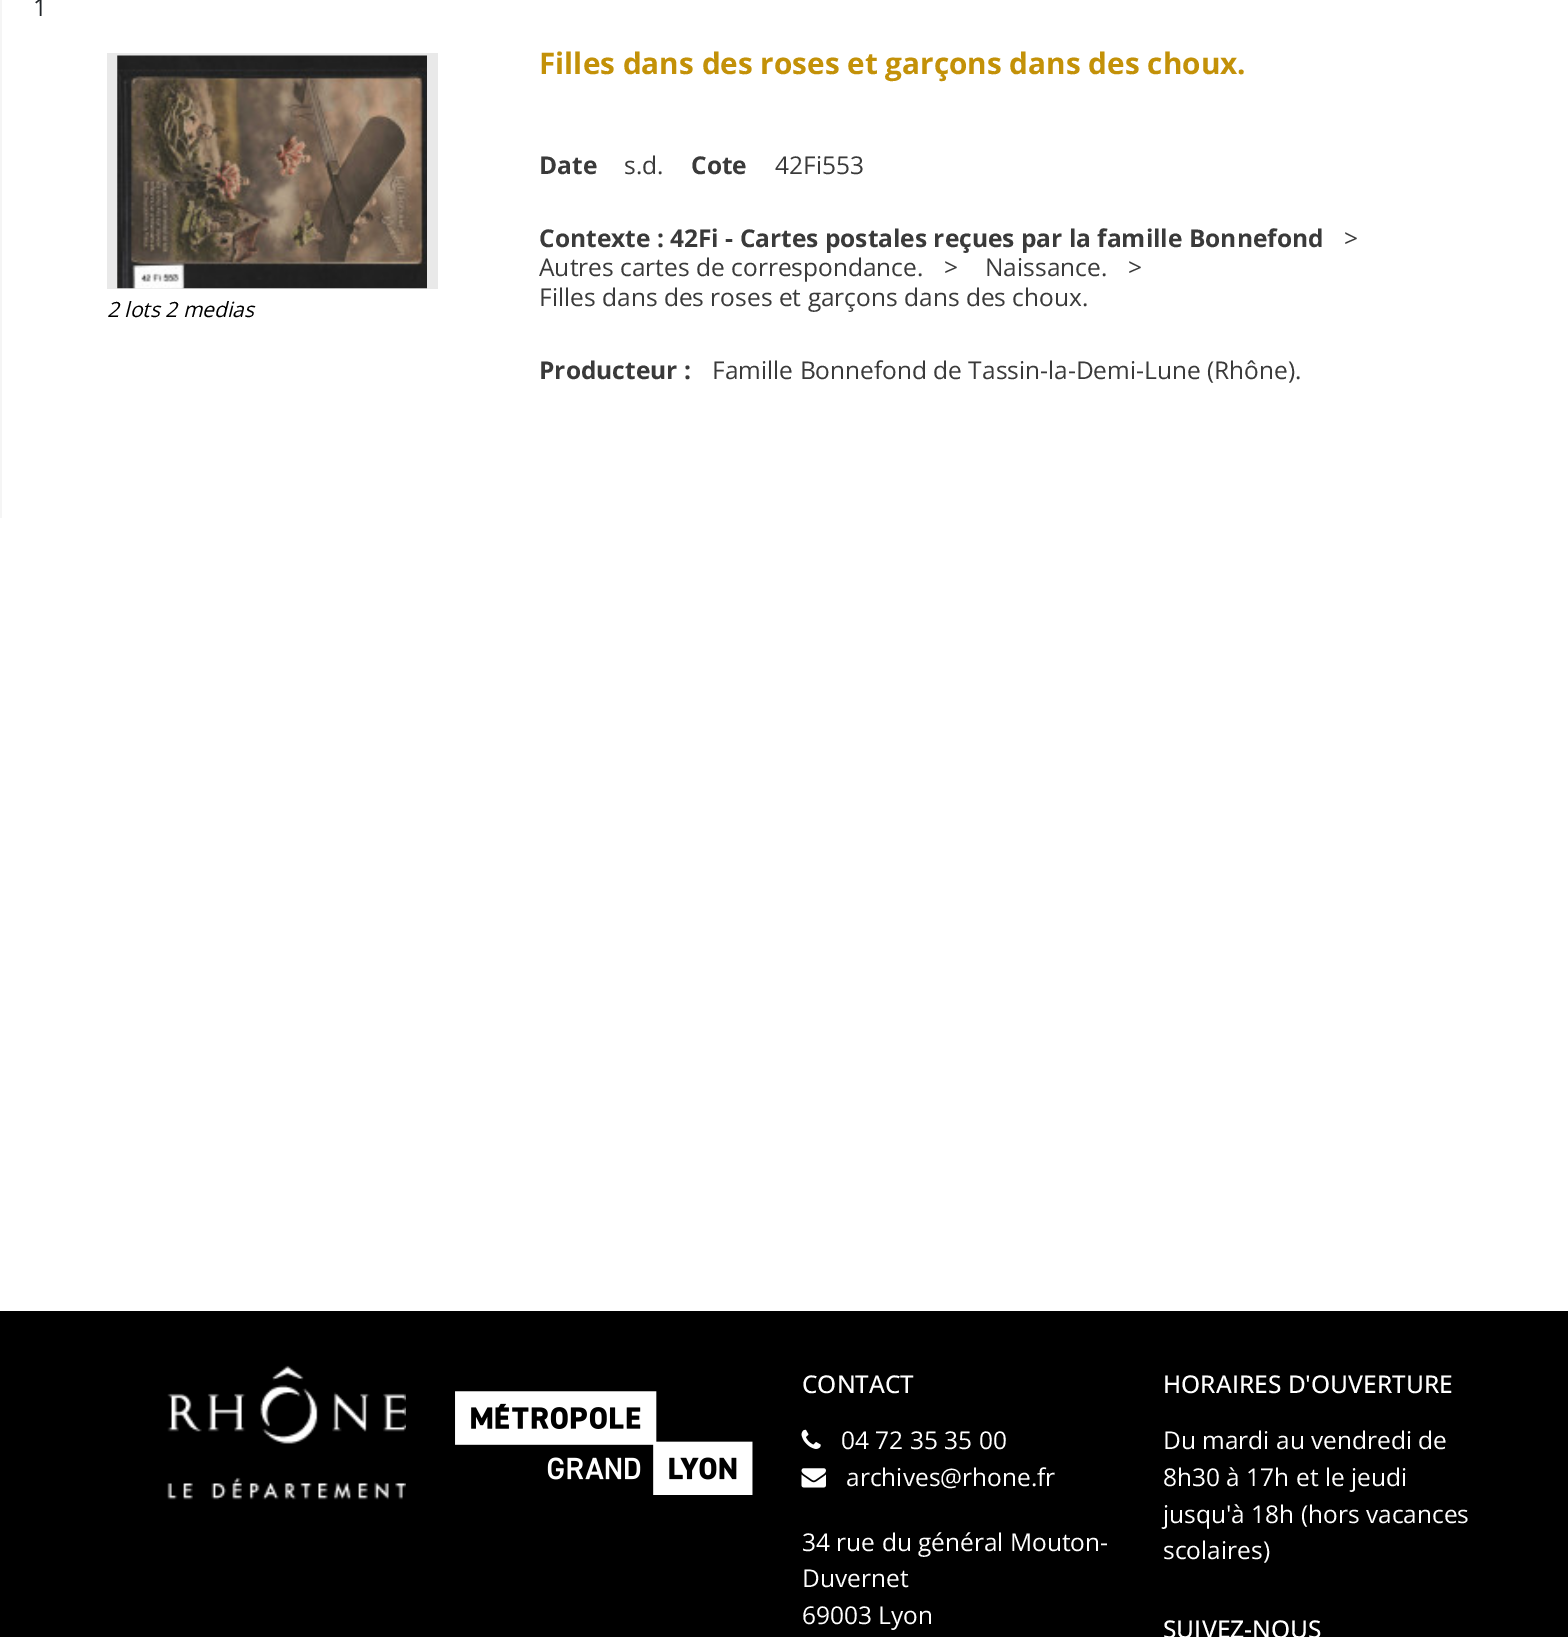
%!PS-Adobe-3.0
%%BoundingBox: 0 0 1568 1637
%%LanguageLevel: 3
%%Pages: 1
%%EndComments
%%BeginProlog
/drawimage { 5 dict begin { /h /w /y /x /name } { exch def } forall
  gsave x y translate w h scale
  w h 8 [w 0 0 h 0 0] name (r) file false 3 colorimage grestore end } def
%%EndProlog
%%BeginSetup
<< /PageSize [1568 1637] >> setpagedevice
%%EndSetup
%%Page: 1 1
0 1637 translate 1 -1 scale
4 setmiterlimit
1 setgray
0 0 1568 1637 rectfill
0.961 setgray
0 0 2 518 rectfill
0.914 setgray
107 53 331 236 rectfill
(images/1.raw) 117 55 310 234 drawimage
0 setgray
0 1311 1568 326 rectfill
(images/2.raw) 167 1365 239 135 drawimage
(images/3.raw) 455 1391 298 104 drawimage
(images/4.raw) 801 1429 20 20 drawimage
(images/5.raw) 801 1468 25 20 drawimage
/OpenSans-Regular [24.5 0 0 -24.5 0 0] selectfont
0.129 0.145 0.161 setrgbcolor
33 16 moveto (1) show
/OpenSans-Italic [21 0 0 -21 0 0] selectfont
0 setgray
107 317 moveto (2 lots 2 medias) show
/OpenSans-Bold [29.75 0 0 -29.75 0 0] selectfont
0.765 0.569 0.031 setrgbcolor
539 74 moveto (Filles dans des roses et garçons dans des choux.) show
/OpenSans-Bold [24.5 0 0 -24.5 0 0] selectfont
0.227 setgray
539 174 moveto (Date) show
/OpenSans-Regular [24.5 0 0 -24.5 0 0] selectfont
624 174 moveto (s.d.) show
/OpenSans-Bold [24.5 0 0 -24.5 0 0] selectfont
691 174 moveto (Cote) show
/OpenSans-Regular [24.5 0 0 -24.5 0 0] selectfont
775 174 moveto (42Fi553) show
/OpenSans-Bold [24.5 0 0 -24.5 0 0] selectfont
539 247 moveto (Contexte : 42Fi - Cartes postales reçues par la famille Bonnefond) show
/OpenSans-Regular [24.5 0 0 -24.5 0 0] selectfont
1344 247 moveto (>) show
539 276 moveto (Autres cartes de correspondance.) show
944 276 moveto (>) show
985 276 moveto (Naissance.) show
1128 276 moveto (>) show
539 306 moveto (Filles dans des roses et garçons dans des choux.) show
/OpenSans-Bold [24.5 0 0 -24.5 0 0] selectfont
539 379 moveto (Producteur :) show
/OpenSans-Regular [24.5 0 0 -24.5 0 0] selectfont
712 379 moveto (Famille Bonnefond de Tassin-la-Demi-Lune \(Rhône\).) show
/OpenSans-Medium [24.5 0 0 -24.5 0 0] selectfont
1 setgray
802 1393 moveto (CONTACT) show
/OpenSans-Regular [24.5 0 0 -24.5 0 0] selectfont
841 1449 moveto (04 72 35 35 00) show
846 1486 moveto (archives@rhone.fr) show
802 1551 moveto (34 rue du général Mouton-) show
802 1587 moveto (Duvernet) show
802 1624 moveto (69003 Lyon) show
/OpenSans-Medium [24.5 0 0 -24.5 0 0] selectfont
1163 1393 moveto (HORAIRES D'OUVERTURE) show
/OpenSans-Regular [24.5 0 0 -24.5 0 0] selectfont
1163 1449 moveto (Du mardi au vendredi de) show
1163 1486 moveto (8h30 à 17h et le jeudi) show
1163 1523 moveto (jusqu'à 18h \(hors vacances) show
1163 1559 moveto (scolaires\)) show
/OpenSans-Medium [24.5 0 0 -24.5 0 0] selectfont
1163 1638 moveto (SUIVEZ-NOUS) show
showpage
%%EOF
